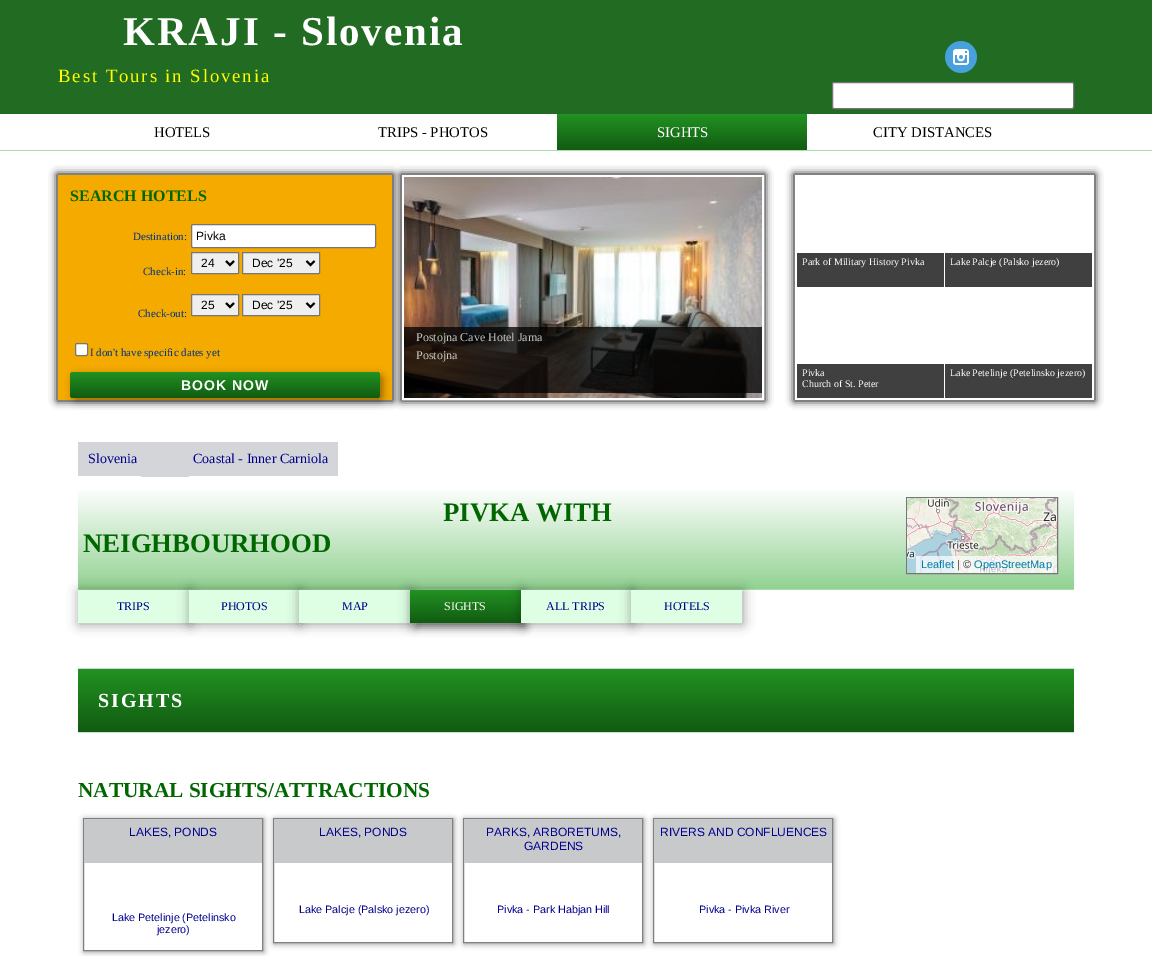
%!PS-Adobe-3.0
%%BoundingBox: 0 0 1152 956
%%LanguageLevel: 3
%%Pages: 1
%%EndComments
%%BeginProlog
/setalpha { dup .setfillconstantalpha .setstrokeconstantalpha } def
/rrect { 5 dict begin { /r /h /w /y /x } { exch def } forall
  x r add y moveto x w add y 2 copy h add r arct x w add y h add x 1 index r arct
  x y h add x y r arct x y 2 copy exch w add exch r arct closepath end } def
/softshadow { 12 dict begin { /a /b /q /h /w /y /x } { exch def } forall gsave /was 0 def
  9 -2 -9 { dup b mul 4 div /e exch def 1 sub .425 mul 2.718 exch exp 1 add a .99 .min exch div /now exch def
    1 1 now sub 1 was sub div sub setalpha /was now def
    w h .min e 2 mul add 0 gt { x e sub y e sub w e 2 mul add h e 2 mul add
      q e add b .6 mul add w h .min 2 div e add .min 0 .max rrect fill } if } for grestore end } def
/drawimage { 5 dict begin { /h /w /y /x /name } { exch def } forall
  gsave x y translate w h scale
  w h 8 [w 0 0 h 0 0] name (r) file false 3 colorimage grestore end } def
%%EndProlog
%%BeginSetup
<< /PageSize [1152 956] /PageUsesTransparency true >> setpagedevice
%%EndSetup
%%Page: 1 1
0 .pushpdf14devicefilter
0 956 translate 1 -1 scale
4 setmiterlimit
1 setgray
0 0 1152 956 rectfill
0.133 0.42 0.133 setrgbcolor
0 0 1152 114 rectfill
(images/1.raw) 945 41 32 32 drawimage
1 setgray
832.5 82.5 241 26 1.5 rrect gsave fill grestore
0.463 setgray
stroke
gsave newpath 557 114 moveto 807 114 lineto 807 150 lineto 557 150 lineto closepath clip newpath
<< /ShadingType 2 /ColorSpace /DeviceRGB /Coords [682 150 682 114] /Extend [true true] /Function << /FunctionType 2 /Domain [0 1] /C0 [0.067 0.357 0.067] /C1 [0.133 0.573 0.133] /N 1 >> >> shfill grestore
0.667 0.867 0.667 setrgbcolor
0 150 1152 1 rectfill
0 setgray
57 174 336 227 0 4 1 softshadow
0.961 0.667 0 setrgbcolor
58 175 334 225 rectfill
1 setgray
191.5 224.5 184 23 1.5 rrect gsave fill grestore
0.463 setgray
stroke
0.937 setgray
191.5 252.5 47 21 0.5 rrect gsave fill grestore
0.463 setgray
stroke
0 setgray
2 setlinewidth
newpath 226 261 moveto 230 265 lineto 234 261 lineto stroke
0.937 setgray
242.5 252.5 77 21 0.5 rrect gsave fill grestore
0.463 setgray
1 setlinewidth
stroke
0 setgray
2 setlinewidth
newpath 306.5 261 moveto 310.5 265 lineto 314.5 261 lineto stroke
0.937 setgray
191.5 294.5 47 21 0.5 rrect gsave fill grestore
0.463 setgray
1 setlinewidth
stroke
0 setgray
2 setlinewidth
newpath 226 303 moveto 230 307 lineto 234 303 lineto stroke
0.937 setgray
242.5 294.5 77 21 0.5 rrect gsave fill grestore
0.463 setgray
1 setlinewidth
stroke
0 setgray
2 setlinewidth
newpath 306.5 303 moveto 310.5 307 lineto 314.5 303 lineto stroke
1 setgray
75.5 343.5 12 12 1.5 rrect gsave fill grestore
0.463 setgray
1 setlinewidth
stroke
0 setgray
73 375 310 26 4 4 0.4 softshadow
gsave 70 372 310 26 4 rrect clip newpath
<< /ShadingType 2 /ColorSpace /DeviceRGB /Coords [225 398 225 372] /Extend [true true] /Function << /FunctionType 2 /Domain [0 1] /C0 [0.067 0.357 0.067] /C1 [0.133 0.573 0.133] /N 1 >> >> shfill grestore
401 174 364 227 0 4 1 softshadow
1 setgray
2 setlinewidth
403 176 360 223 rectstroke
(images/2.raw) 404 177 358 221 drawimage
0.75 setalpha
0 setgray
404 327 358 66 rectfill
gsave
newpath 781 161 moveto 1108 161 lineto 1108 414 lineto 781 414 lineto closepath 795 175 moveto 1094 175 lineto 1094 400 lineto 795 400 lineto closepath eoclip newpath
1 setalpha
794 174 301 227 0 4 1 softshadow
grestore
1 setalpha
0.251 setgray
797 253 147 34 rectfill
797 364 147 34 rectfill
945 253 147 34 rectfill
945 364 147 34 rectfill
0.827 0.835 0.847 setrgbcolor
78 442 63 34 rectfill
141 442 48 35 rectfill
189 442 149 34 rectfill
gsave newpath 78 489 moveto 1074 489 lineto 1074 589 lineto 78 589 lineto closepath clip newpath
<< /ShadingType 2 /ColorSpace /DeviceRGB /Coords [576 589 576 487] /Extend [true true] /Function << /FunctionType 2 /Domain [0 1] /C0 [0.573 0.824 0.573] /C1 [1 1 1] /N 1 >> >> shfill grestore
0.467 setgray
1 setlinewidth
906.5 497.5 151 76 rectstroke
(images/3.raw) 907 498 150 75 drawimage
0.7 setalpha
1 setgray
916 556 141 17 rectfill
1 setalpha
0.667 0.867 0.667 setrgbcolor
78 589 996 1 rectfill
0 setgray
79 591 111 33 0 6 0.4 softshadow
0.875 1 0.898 setrgbcolor
78 590 111 33 rectfill
0 setgray
190 591 110 33 0 6 0.4 softshadow
0.875 1 0.898 setrgbcolor
189 590 110 33 rectfill
0 setgray
300 591 111 33 0 6 0.4 softshadow
0.875 1 0.898 setrgbcolor
299 590 111 33 rectfill
0 setgray
411 591 111 33 0 6 0.4 softshadow
415 595 111 33 0 4 0.4 softshadow
gsave newpath 410 590 moveto 521 590 lineto 521 623 lineto 410 623 lineto closepath clip newpath
<< /ShadingType 2 /ColorSpace /DeviceRGB /Coords [466 623 466 590] /Extend [true true] /Function << /FunctionType 2 /Domain [0 1] /C0 [0.067 0.357 0.067] /C1 [0.133 0.573 0.133] /N 1 >> >> shfill grestore
522 591 110 33 0 6 0.4 softshadow
0.875 1 0.898 setrgbcolor
521 590 110 33 rectfill
0 setgray
632 591 111 33 0 6 0.4 softshadow
0.875 1 0.898 setrgbcolor
631 590 111 33 rectfill
gsave newpath 78 669 moveto 1074 669 lineto 1074 732 lineto 78 732 lineto closepath clip newpath
<< /ShadingType 2 /ColorSpace /DeviceRGB /Coords [576 732 576 669] /Extend [true true] /Function << /FunctionType 2 /Domain [0 1] /C0 [0.067 0.357 0.067] /C1 [0.133 0.573 0.133] /N 1 >> >> shfill grestore
0.8 0.867 0.8 setrgbcolor
78 668 996 1 rectfill
78 732 996 1 rectfill
gsave
newpath 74 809 moveto 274 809 lineto 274 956 lineto 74 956 lineto closepath 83 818 moveto 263 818 lineto 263 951 lineto 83 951 lineto closepath eoclip newpath
0 setgray
84 819 180 133 0 3 0.4 softshadow
grestore
0.502 setgray
83.5 818.5 179 132 rectstroke
0.78 0.788 0.796 setrgbcolor
84 819 178 44 rectfill
gsave
newpath 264 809 moveto 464 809 lineto 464 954 lineto 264 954 lineto closepath 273 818 moveto 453 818 lineto 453 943 lineto 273 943 lineto closepath eoclip newpath
0 setgray
274 819 180 125 0 3 0.4 softshadow
grestore
0.502 setgray
273.5 818.5 179 124 rectstroke
0.78 0.788 0.796 setrgbcolor
274 819 178 44 rectfill
gsave
newpath 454 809 moveto 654 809 lineto 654 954 lineto 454 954 lineto closepath 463 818 moveto 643 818 lineto 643 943 lineto 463 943 lineto closepath eoclip newpath
0 setgray
464 819 180 125 0 3 0.4 softshadow
grestore
0.502 setgray
463.5 818.5 179 124 rectstroke
0.78 0.788 0.796 setrgbcolor
464 819 178 44 rectfill
gsave
newpath 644 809 moveto 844 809 lineto 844 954 lineto 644 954 lineto closepath 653 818 moveto 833 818 lineto 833 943 lineto 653 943 lineto closepath eoclip newpath
0 setgray
654 819 180 125 0 3 0.4 softshadow
grestore
0.502 setgray
653.5 818.5 179 124 rectstroke
0.78 0.788 0.796 setrgbcolor
654 819 178 44 rectfill
/LiberationSerif-Bold [41 0 0 -41 0 0] selectfont
1 setgray
123 45 moveto 2 0 (KRAJI - Slovenia) ashow
/LiberationSerif-Regular [18.75 0 0 -18.75 0 0] selectfont
1 1 0 setrgbcolor
58 82 moveto 1.9 0 (Best Tours in Slovenia) ashow
/LiberationSerif-Regular [14.75 0 0 -14.75 0 0] selectfont
0 setgray
154 137 moveto (HOTELS) show
378 137 moveto (TRIPS - PHOTOS) show
1 setgray
657 137 moveto (SIGHTS) show
0 setgray
873 137 moveto (CITY DISTANCES) show
/LiberationSerif-Bold [16 0 0 -16 0 0] selectfont
0 0.4 0 setrgbcolor
70 201 moveto (SEARCH HOTELS) show
/LiberationSerif-Regular [11 0 0 -11 0 0] selectfont
0 0.208 0.502 setrgbcolor
133 240 moveto (Destination:) show
/LiberationSans-Regular [12 0 0 -12 0 0] selectfont
0 setgray
196 240 moveto (Pivka) show
201 267 moveto (24) show
252 267 moveto (Dec '25) show
/LiberationSerif-Regular [11 0 0 -11 0 0] selectfont
0 0.208 0.502 setrgbcolor
143 275 moveto (Check-in:) show
/LiberationSans-Regular [12 0 0 -12 0 0] selectfont
0 setgray
201 309 moveto (25) show
252 309 moveto (Dec '25) show
/LiberationSerif-Regular [11 0 0 -11 0 0] selectfont
0 0.208 0.502 setrgbcolor
138 317 moveto (Check-out:) show
90 356 moveto (I don't have specific dates yet) show
/LiberationSans-Bold [14 0 0 -14 0 0] selectfont
1 setgray
181 390 moveto 1 0 (BOOK NOW) ashow
/LiberationSerif-Regular [12 0 0 -12 0 0] selectfont
0.773 0.769 0.765 setrgbcolor
416 341 moveto (Postojna Cave Hotel Jama) show
416 359 moveto (Postojna) show
/LiberationSerif-Regular [10 0 0 -10 0 0] selectfont
1 setgray
802 265 moveto (Park of Military History Pivka) show
802 376 moveto (Pivka) show
802 387 moveto (Church of St. Peter) show
950 265 moveto (Lake Palcje \(Palsko jezero\)) show
950 376 moveto (Lake Petelinje \(Petelinsko jezero\)) show
/LiberationSerif-Regular [14 0 0 -14 0 0] selectfont
0 0 0.545 setrgbcolor
88 463 moveto (Slovenia) show
193 463 moveto (Coastal - Inner Carniola) show
/LiberationSerif-Bold [26.75 0 0 -26.75 0 0] selectfont
0 0.4 0 setrgbcolor
443 521 moveto (PIVKA WITH) show
83 552 moveto (NEIGHBOURHOOD) show
/LiberationSans-Regular [11 0 0 -11 0 0] selectfont
0 0.471 0.659 setrgbcolor
921 568 moveto (Leaflet) show
0.2 setgray
957 568 moveto (| ©) show
0 0.471 0.659 setrgbcolor
974 568 moveto (OpenStreetMap) show
/LiberationSerif-Regular [12 0 0 -12 0 0] selectfont
0 0 0.545 setrgbcolor
117 610 moveto (TRIPS) show
221 610 moveto (PHOTOS) show
342 610 moveto (MAP) show
1 1 0.969 setrgbcolor
444 610 moveto (SIGHTS) show
0 0 0.545 setrgbcolor
546 610 moveto (ALL TRIPS) show
664 610 moveto (HOTELS) show
/LiberationSerif-Bold [20 0 0 -20 0 0] selectfont
1 setgray
98 707 moveto 2 0 (SIGHTS) ashow
/LiberationSerif-Bold [21.3 0 0 -21.3 0 0] selectfont
0 0.4 0 setrgbcolor
78 797 moveto (NATURAL SIGHTS/ATTRACTIONS) show
/LiberationSans-Regular [12 0 0 -12 0 0] selectfont
0 0 0.545 setrgbcolor
129 836 moveto (LAKES, PONDS) show
/LiberationSans-Regular [10.75 0 0 -10.75 0 0] selectfont
112 921 moveto (Lake Petelinje \(Petelinsko) show
157 933 moveto (jezero\)) show
/LiberationSans-Regular [12 0 0 -12 0 0] selectfont
319 836 moveto (LAKES, PONDS) show
/LiberationSans-Regular [10.75 0 0 -10.75 0 0] selectfont
299 913 moveto (Lake Palcje \(Palsko jezero\)) show
/LiberationSans-Regular [12 0 0 -12 0 0] selectfont
486 836 moveto (PARKS, ARBORETUMS,) show
524 850 moveto (GARDENS) show
/LiberationSans-Regular [10.75 0 0 -10.75 0 0] selectfont
497 913 moveto (Pivka - Park Habjan Hill) show
/LiberationSans-Regular [12 0 0 -12 0 0] selectfont
660 836 moveto (RIVERS AND CONFLUENCES) show
/LiberationSans-Regular [10.75 0 0 -10.75 0 0] selectfont
699 913 moveto (Pivka - Pivka River) show
.poppdf14devicefilter showpage
%%EOF
